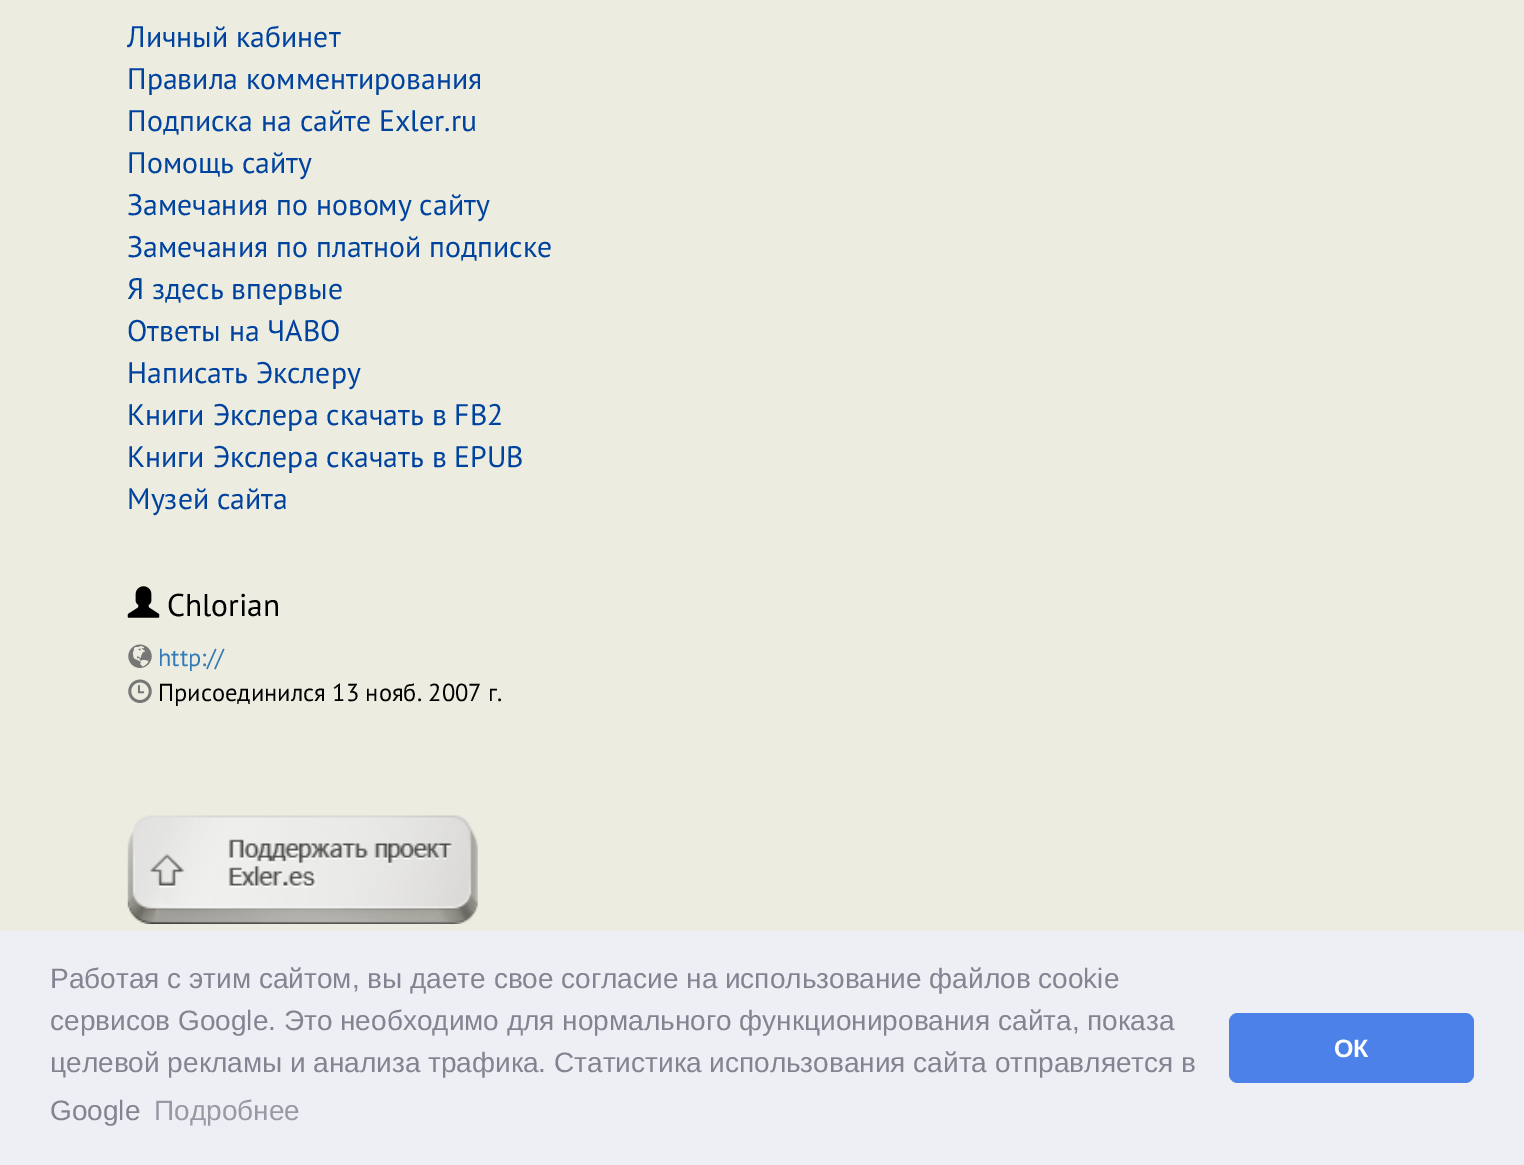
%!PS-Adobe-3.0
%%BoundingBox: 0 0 1524 1165
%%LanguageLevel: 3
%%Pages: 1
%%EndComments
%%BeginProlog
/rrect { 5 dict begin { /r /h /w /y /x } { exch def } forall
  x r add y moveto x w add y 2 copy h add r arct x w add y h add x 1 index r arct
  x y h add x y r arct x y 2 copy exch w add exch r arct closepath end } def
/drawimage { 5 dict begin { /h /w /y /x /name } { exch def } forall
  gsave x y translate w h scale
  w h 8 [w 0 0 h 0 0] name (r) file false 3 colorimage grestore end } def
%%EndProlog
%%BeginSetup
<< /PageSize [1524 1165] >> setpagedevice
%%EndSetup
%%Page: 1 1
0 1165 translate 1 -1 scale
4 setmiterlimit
0.929 0.925 0.878 setrgbcolor
0 0 1524 1165 rectfill
(images/1.raw) 127 586 33 32 drawimage
(images/2.raw) 128 644 24 24 drawimage
(images/3.raw) 128 679 24 24 drawimage
(images/4.raw) 127 815 351 109 drawimage
0.929 0.937 0.961 setrgbcolor
0 931 1524 234 rectfill
0.294 0.506 0.91 setrgbcolor
1229 1013 245 70 9 rrect fill
/PTSans-Regular [29.75 0 0 -29.75 0 0] selectfont
0 0.263 0.624 setrgbcolor
127 47 moveto (Личный кабинет) show
127 89 moveto (Правила комментирования) show
127 131 moveto (Подписка на сайте Exler.ru) show
127 173 moveto (Помощь сайту) show
127 215 moveto (Замечания по новому сайту) show
127 257 moveto (Замечания по платной подписке) show
127 299 moveto (Я здесь впервые) show
127 341 moveto (Ответы на ЧАВО) show
127 383 moveto (Написать Экслеру) show
127 425 moveto (Книги Экслера скачать в FB2) show
127 467 moveto (Книги Экслера скачать в EPUB) show
127 509 moveto (Музей сайта) show
/PTSans-Regular [31.5 0 0 -31.5 0 0] selectfont
0 setgray
167 616 moveto (Chlorian) show
/PTSans-Regular [24.5 0 0 -24.5 0 0] selectfont
0.2 0.478 0.718 setrgbcolor
158 666 moveto (http://) show
0 setgray
158 701 moveto (Присоединился 13 нояб. 2007 г.) show
/LiberationSans-Regular [28 0 0 -28 0 0] selectfont
0.514 0.514 0.569 setrgbcolor
50 988 moveto (Работая с этим сайтом, вы даете свое согласие на использование файлов cookie) show
50 1030 moveto (сервисов Google. Это необходимо для нормального функционирования сайта, показа) show
50 1072 moveto (целевой рекламы и анализа трафика. Статистика использования сайта отправляется в) show
50 1120 moveto (Google) show
0.596 0.6 0.647 setrgbcolor
154 1120 moveto (Подробнее) show
/LiberationSans-Bold [25 0 0 -25 0 0] selectfont
1 setgray
1334 1057 moveto (ОК) show
showpage
%%EOF
